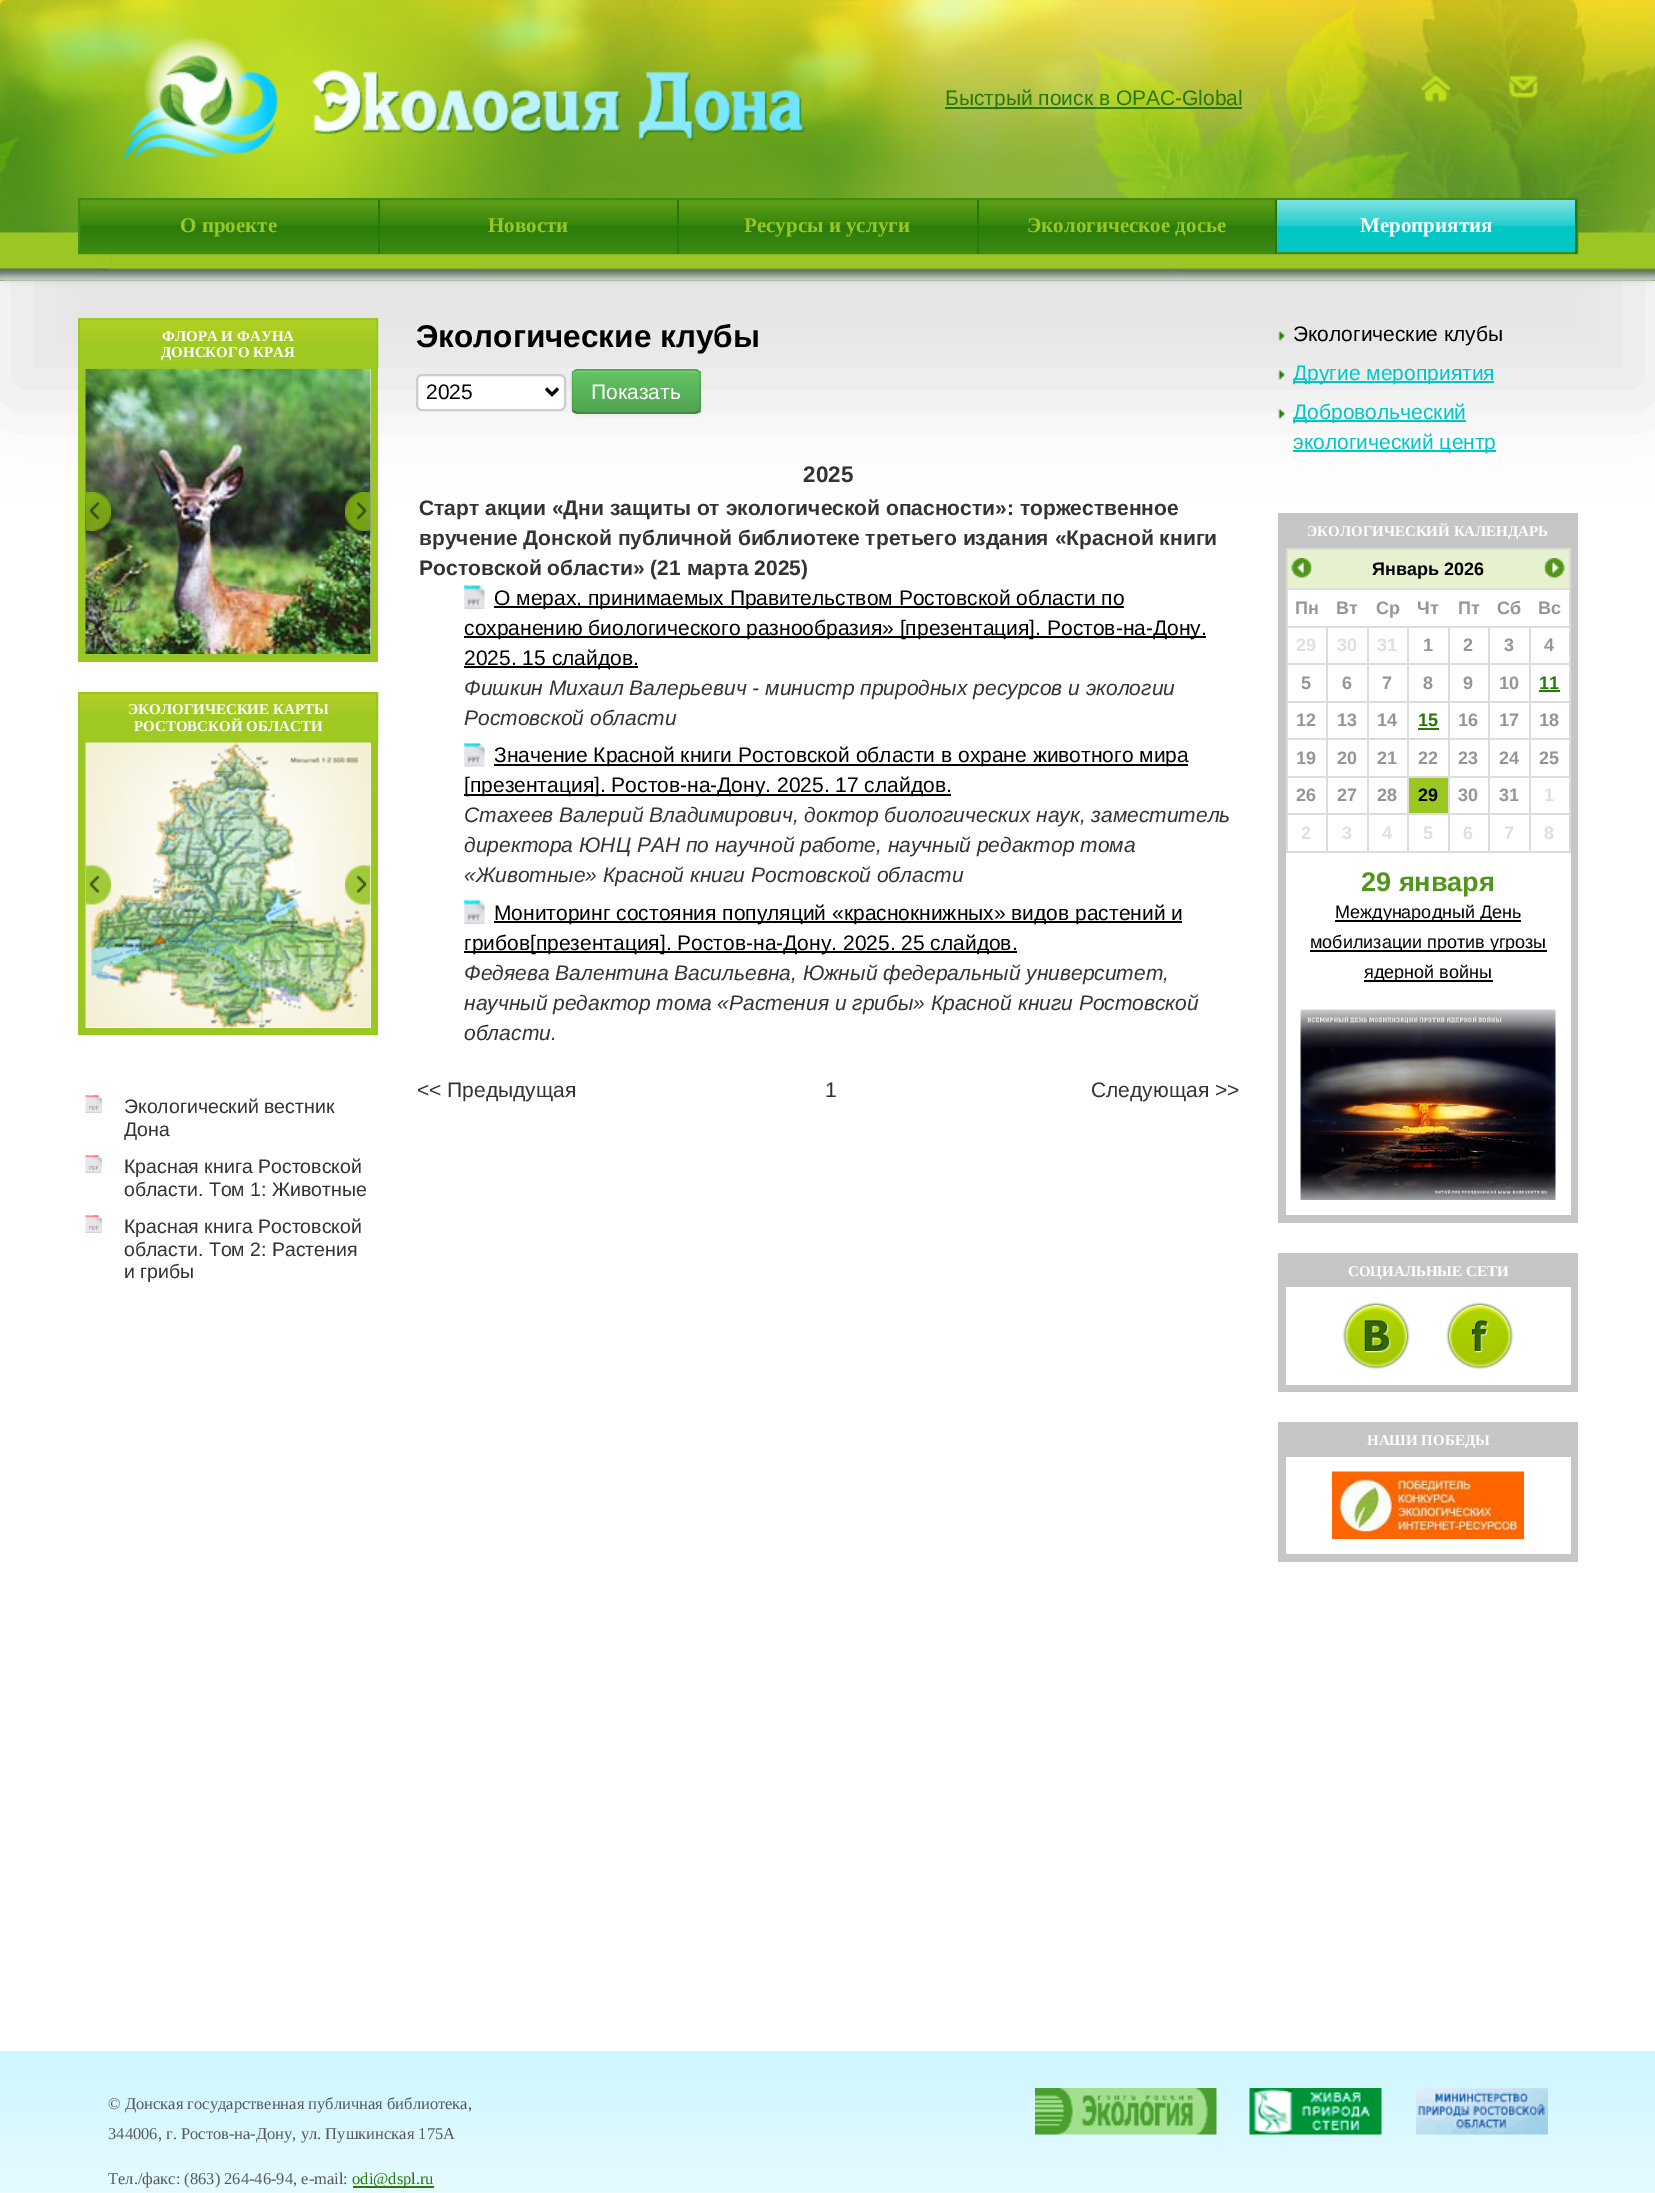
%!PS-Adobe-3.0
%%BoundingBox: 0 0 1655 2193
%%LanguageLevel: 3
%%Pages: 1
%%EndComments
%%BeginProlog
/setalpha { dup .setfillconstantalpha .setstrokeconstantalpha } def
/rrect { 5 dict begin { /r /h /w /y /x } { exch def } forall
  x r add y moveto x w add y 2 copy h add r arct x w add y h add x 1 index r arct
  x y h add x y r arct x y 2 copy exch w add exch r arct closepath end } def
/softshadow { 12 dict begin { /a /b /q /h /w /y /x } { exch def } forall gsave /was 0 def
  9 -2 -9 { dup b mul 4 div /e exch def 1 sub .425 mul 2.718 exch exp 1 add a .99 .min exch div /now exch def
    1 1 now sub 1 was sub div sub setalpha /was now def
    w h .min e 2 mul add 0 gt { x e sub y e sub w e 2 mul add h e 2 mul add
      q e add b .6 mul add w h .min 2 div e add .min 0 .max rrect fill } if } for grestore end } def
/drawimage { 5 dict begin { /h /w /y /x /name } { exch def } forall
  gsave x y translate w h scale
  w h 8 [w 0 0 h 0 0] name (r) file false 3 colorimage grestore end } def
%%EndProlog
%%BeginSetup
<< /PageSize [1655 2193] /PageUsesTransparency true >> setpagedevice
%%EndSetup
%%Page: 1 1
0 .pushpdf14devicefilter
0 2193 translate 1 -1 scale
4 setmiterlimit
1 setgray
0 0 1655 2193 rectfill
0.478 setgray
0 120 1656 281 0 45 0.2 softshadow
0.435 0.596 0.149 setrgbcolor
0 280 1655 1 rectfill
(images/1.raw) 0 0 1655 281 drawimage
0 setgray
0 2 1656 280 6 3 0.07 softshadow
(images/2.raw) 0 0 1655 281 drawimage
(images/3.raw) 123 37 682 124 drawimage
0.149 0.478 0.039 setrgbcolor
945 107 297 2 rectfill
(images/4.raw) 1421 75 30 28 drawimage
(images/5.raw) 1509 75 29 23 drawimage
gsave newpath 80 200 moveto 1275 200 lineto 1275 252 lineto 80 252 lineto closepath clip newpath
<< /ShadingType 2 /ColorSpace /DeviceRGB /Coords [828 199 828 252] /Extend [true true] /Function << /FunctionType 3 /Domain [0 1] /Functions [<< /FunctionType 2 /Domain [0 1] /C0 [0.38 0.631 0.09] /C1 [0.208 0.518 0.051] /N 1 >> << /FunctionType 2 /Domain [0 1] /C0 [0.208 0.518 0.051] /C1 [0.161 0.486 0.043] /N 1 >> << /FunctionType 2 /Domain [0 1] /C0 [0.161 0.486 0.043] /C1 [0.247 0.541 0.078] /N 1 >>] /Bounds [0.5 0.51] /Encode [0 1 0 1 0 1] >> >> shfill grestore
0.251 0.545 0.063 setrgbcolor
2 setlinewidth
79 199 1498 54 rectstroke
0.149 0.478 0.039 setrgbcolor
378 200 2 54 rectfill
677 200 2 54 rectfill
977 200 2 54 rectfill
1275 200 2 54 rectfill
gsave newpath 1277 200 moveto 1575 200 lineto 1575 252 lineto 1277 252 lineto closepath clip newpath
<< /ShadingType 2 /ColorSpace /DeviceRGB /Coords [1427 200 1427 252] /Extend [true true] /Function << /FunctionType 3 /Domain [0 1] /Functions [<< /FunctionType 2 /Domain [0 1] /C0 [0.502 0.89 0.89] /C1 [0.129 0.804 0.804] /N 1 >> << /FunctionType 2 /Domain [0 1] /C0 [0.129 0.804 0.804] /C1 [0 0.776 0.776] /N 1 >> << /FunctionType 2 /Domain [0 1] /C0 [0 0.776 0.776] /C1 [0 0.776 0.776] /N 1 >>] /Bounds [0.5 0.51] /Encode [0 1 0 1 0 1] >> >> shfill grestore
1575 200 2 54 rectfill
1 setgray
370 369 1 91 rectfill
gsave newpath 80 320 moveto 376 320 lineto 376 367 lineto 80 367 lineto closepath clip newpath
<< /ShadingType 2 /ColorSpace /DeviceRGB /Coords [228 320 228 368] /Extend [true true] /Function << /FunctionType 3 /Domain [0 1] /Functions [<< /FunctionType 2 /Domain [0 1] /C0 [0.702 0.82 0.137] /C1 [0.624 0.788 0.137] /N 1 >> << /FunctionType 2 /Domain [0 1] /C0 [0.624 0.788 0.137] /C1 [0.624 0.788 0.137] /N 1 >>] /Bounds [0.5] /Encode [0 1 0 1] >> >> shfill grestore
0.608 0.78 0.137 setrgbcolor
79 319 298 49 rectstroke
371 369 7 293 rectfill
78 654 300 8 rectfill
78 369 8 293 rectfill
(images/6.raw) 85 369 286 285 drawimage
(images/7.raw) 85 492 26 39 drawimage
(images/8.raw) 345 492 26 39 drawimage
gsave newpath 80 694 moveto 376 694 lineto 376 741 lineto 80 741 lineto closepath clip newpath
<< /ShadingType 2 /ColorSpace /DeviceRGB /Coords [228 693 228 741] /Extend [true true] /Function << /FunctionType 3 /Domain [0 1] /Functions [<< /FunctionType 2 /Domain [0 1] /C0 [0.702 0.82 0.137] /C1 [0.624 0.788 0.137] /N 1 >> << /FunctionType 2 /Domain [0 1] /C0 [0.624 0.788 0.137] /C1 [0.624 0.788 0.137] /N 1 >>] /Bounds [0.5] /Encode [0 1 0 1] >> >> shfill grestore
79 693 298 49 rectstroke
371 743 7 292 rectfill
78 1028 300 7 rectfill
78 743 8 292 rectfill
(images/9.raw) 85 742 286 286 drawimage
(images/10.raw) 85 865 26 40 drawimage
(images/11.raw) 345 865 26 40 drawimage
(images/12.raw) 85 1095 17 18 drawimage
(images/13.raw) 85 1155 17 18 drawimage
(images/13.raw) 85 1215 17 18 drawimage
1 setgray
417 375 148 35 5 rrect gsave fill grestore
0.8 setgray
stroke
0 setgray
3 setlinewidth
newpath 546 388.5 moveto 552 394.5 lineto 558 388.5 lineto stroke
572 371 129 45 6 1.5 0.05 softshadow
0.357 0.718 0.357 setrgbcolor
572 369 129 45 6 rrect fill
gsave
572 369 129 45 6 rrect clip newpath
gsave newpath 572 371 moveto 701 371 lineto 701 413 lineto 572 413 lineto closepath clip newpath
<< /ShadingType 2 /ColorSpace /DeviceRGB /Coords [636 371 636 413] /Extend [true true] /Function << /FunctionType 2 /Domain [0 1] /C0 [0.384 0.769 0.384] /C1 [0.318 0.639 0.318] /N 1 >> >> shfill grestore
grestore
0.506 0.816 0.506 setrgbcolor
newpath 578 372 moveto 694 372 lineto 697 372 699 374 699 376 curveto 699 373 697 371 694 371 curveto 578 371 lineto 575 371 573 373 573 376 curveto 573 374 575 372 578 372 curveto closepath fill
0.25 setalpha
0 setgray
1.5 setlinewidth
newpath 698 411.5 moveto 695 413 lineto 577 413 lineto 574 411.5 lineto stroke
0.1 setalpha
newpath 574 411.5 moveto 571.5 409.5 572 405.5 572 402.5 curveto 572 391.5 lineto 572 365.5 569 370 597 370 curveto 694.5 370 lineto 700.5 370 700 376.5 700 380.5 curveto 700 397 lineto 700 400.5 701.5 408.5 698 411.5 curveto stroke
1 setalpha
(images/14.raw) 464 585 21 24 drawimage
494 606 630 2 rectfill
464 636 742 2 rectfill
464 666 174 2 rectfill
(images/15.raw) 464 743 21 24 drawimage
494 764 694 2 rectfill
464 794 487 2 rectfill
(images/14.raw) 464 900 21 24 drawimage
494 921 688 2 rectfill
464 951 553 2 rectfill
(images/16.raw) 1278 330 8 11 drawimage
(images/17.raw) 1278 369 8 11 drawimage
0 0.776 0.776 setrgbcolor
1293 381 201 2 rectfill
(images/18.raw) 1278 408 8 11 drawimage
1293 420 173 2 rectfill
1293 450 203 2 rectfill
0.776 setgray
1278 513 300 35 rectfill
1571 548 7 675 rectfill
1278 1215 300 8 rectfill
1278 548 8 675 rectfill
0.863 setgray
1286 548 285 2 rectfill
1569 548 2 304 rectfill
1286 851 285 2 rectfill
1286 548 2 304 rectfill
0.906 0.941 0.812 setrgbcolor
1288 550 281 38 rectfill
0.863 setgray
1286 588 285 2 rectfill
(images/19.raw) 1291 558 22 20 drawimage
(images/20.raw) 1543 558 22 20 drawimage
1529 626 42 2 rectfill
1529 663 42 2 rectfill
1529 701 42 2 rectfill
1529 738 42 2 rectfill
1529 776 42 2 rectfill
1529 813 42 2 rectfill
1529 813 2 39 rectfill
1488 813 42 2 rectfill
1529 776 2 39 rectfill
1488 776 42 2 rectfill
1529 738 2 39 rectfill
1488 738 42 2 rectfill
1529 701 2 39 rectfill
1488 701 42 2 rectfill
1529 663 2 39 rectfill
1488 663 42 2 rectfill
1529 626 2 39 rectfill
1488 626 42 2 rectfill
1488 813 2 39 rectfill
1448 813 42 2 rectfill
1488 776 2 39 rectfill
1448 776 42 2 rectfill
1488 738 2 39 rectfill
1448 738 42 2 rectfill
1488 701 2 39 rectfill
1448 701 42 2 rectfill
1488 663 2 39 rectfill
1448 663 42 2 rectfill
1488 626 2 39 rectfill
1448 626 42 2 rectfill
1448 813 2 39 rectfill
1407 813 42 2 rectfill
1448 776 2 39 rectfill
1407 776 42 2 rectfill
1448 738 2 39 rectfill
1407 738 42 2 rectfill
1448 701 2 39 rectfill
1407 701 42 2 rectfill
1448 663 2 39 rectfill
1407 663 42 2 rectfill
1448 626 2 39 rectfill
1407 626 42 2 rectfill
1407 813 2 39 rectfill
1367 813 42 2 rectfill
1407 776 2 39 rectfill
1367 776 42 2 rectfill
1407 738 2 39 rectfill
1367 738 42 2 rectfill
1407 701 2 39 rectfill
1367 701 42 2 rectfill
1407 663 2 39 rectfill
1367 663 42 2 rectfill
1407 626 2 39 rectfill
1367 626 42 2 rectfill
1367 813 2 39 rectfill
1326 813 42 2 rectfill
1367 776 2 39 rectfill
1326 776 42 2 rectfill
1367 738 2 39 rectfill
1326 738 42 2 rectfill
1367 701 2 39 rectfill
1326 701 42 2 rectfill
1367 663 2 39 rectfill
1326 663 42 2 rectfill
1367 626 2 39 rectfill
1326 626 42 2 rectfill
1326 813 2 39 rectfill
1286 813 42 2 rectfill
1326 776 2 39 rectfill
1286 776 42 2 rectfill
1326 738 2 39 rectfill
1286 738 42 2 rectfill
1326 701 2 39 rectfill
1286 701 42 2 rectfill
1326 663 2 39 rectfill
1286 663 42 2 rectfill
1326 626 2 39 rectfill
1286 626 42 2 rectfill
0.149 0.478 0.039 setrgbcolor
1539 690 21 2 rectfill
1418 728 21 2 rectfill
0.608 0.78 0.137 setrgbcolor
1409 778 39 35 rectfill
0 setgray
1335 920 186 2 rectfill
1310 950 237 2 rectfill
1364 980 129 2 rectfill
(images/21.raw) 1300 1009 256 191 drawimage
0.776 setgray
1278 1253 300 34 rectfill
1571 1287 7 105 rectfill
1278 1385 300 7 rectfill
1278 1287 8 105 rectfill
(images/22.raw) 1342 1302 68 68 drawimage
(images/23.raw) 1446 1302 68 68 drawimage
1278 1422 300 35 rectfill
1571 1457 7 105 rectfill
1278 1554 300 8 rectfill
1278 1457 8 105 rectfill
(images/24.raw) 1332 1471 192 68 drawimage
gsave newpath 0 2051 moveto 1655 2051 lineto 1655 2193 lineto 0 2193 lineto closepath clip newpath
<< /ShadingType 2 /ColorSpace /DeviceRGB /Coords [828 2051 828 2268] /Extend [true true] /Function << /FunctionType 2 /Domain [0 1] /C0 [0.804 0.965 1] /C1 [0.949 0.992 1] /N 1 >> >> shfill grestore
0.149 0.478 0.039 setrgbcolor
353 2186 81 2 rectfill
(images/25.raw) 1035 2088 182 47 drawimage
(images/26.raw) 1249 2088 133 47 drawimage
(images/27.raw) 1416 2088 132 47 drawimage
/LiberationSans-Regular [21 0 0 -21 0 0] selectfont
945 105 moveto (Быстрый поиск в OPAC-Global) show
/LiberationSerif-Bold [21 0 0 -21 0 0] selectfont
0.608 0.78 0.137 setrgbcolor
180 232 moveto (О проекте) show
488 232 moveto (Новости) show
744 232 moveto (Ресурсы и услуги) show
1027 232 moveto (Экологическое досье) show
1 setgray
1360 232 moveto (Мероприятия) show
/LiberationSerif-Bold [15 0 0 -15 0 0] selectfont
162 341 moveto (ФЛОРА И ФАУНА) show
161 357 moveto (ДОНСКОГО КРАЯ) show
128 714 moveto (ЭКОЛОГИЧЕСКИЕ КАРТЫ) show
134 731 moveto (РОСТОВСКОЙ ОБЛАСТИ) show
/LiberationSans-Regular [19.5 0 0 -19.5 0 0] selectfont
0.2 setgray
124 1113 moveto (Экологический вестник) show
124 1136 moveto (Дона) show
124 1173 moveto (Красная книга Ростовской) show
124 1196 moveto (области. Том 1: Животные) show
124 1233 moveto (Красная книга Ростовской) show
124 1256 moveto (области. Том 2: Растения) show
124 1278 moveto (и грибы) show
/LiberationSans-Bold [31.5 0 0 -31.5 0 0] selectfont
0 setgray
416 347 moveto (Экологические клубы) show
/LiberationSans-Regular [21 0 0 -21 0 0] selectfont
426 399 moveto (2025) show
1 setgray
591 399 moveto (Показать) show
/LiberationSans-Bold [22.5 0 0 -22.5 0 0] selectfont
0.2 setgray
803 482 moveto (2025) show
/LiberationSans-Bold [21 0 0 -21 0 0] selectfont
419 515 moveto (Старт акции «Дни защиты от экологической опасности»: торжественное) show
419 545 moveto (вручение Донской публичной библиотеке третьего издания «Красной книги) show
419 575 moveto (Ростовской области» \(21 марта 2025\)) show
/LiberationSans-Regular [21 0 0 -21 0 0] selectfont
0 setgray
494 605 moveto (О мерах, принимаемых Правительством Ростовской области по) show
464 635 moveto (сохранению биологического разнообразия» [презентация]. Ростов-на-Дону.) show
464 665 moveto (2025. 15 слайдов.) show
/LiberationSans-Italic [21 0 0 -21 0 0] selectfont
0.2 setgray
464 695 moveto (Фишкин Михаил Валерьевич - министр природных ресурсов и экологии) show
464 725 moveto (Ростовской области) show
/LiberationSans-Regular [21 0 0 -21 0 0] selectfont
0 setgray
494 762 moveto (Значение Красной книги Ростовской области в охране животного мира) show
464 792 moveto ([презентация]. Ростов-на-Дону. 2025. 17 слайдов.) show
/LiberationSans-Italic [21 0 0 -21 0 0] selectfont
0.2 setgray
464 822 moveto (Стахеев Валерий Владимирович, доктор биологических наук, заместитель) show
464 852 moveto (директора ЮНЦ РАН по научной работе, научный редактор тома) show
464 882 moveto («Животные» Красной книги Ростовской области) show
/LiberationSans-Regular [21 0 0 -21 0 0] selectfont
0 setgray
494 920 moveto (Мониторинг состояния популяций «краснокнижных» видов растений и) show
464 950 moveto (грибов[презентация]. Ростов-на-Дону. 2025. 25 слайдов.) show
/LiberationSans-Italic [21 0 0 -21 0 0] selectfont
0.2 setgray
464 980 moveto (Федяева Валентина Васильевна, Южный федеральный университет,) show
464 1010 moveto (научный редактор тома «Растения и грибы» Красной книги Ростовской) show
464 1040 moveto (области.) show
/LiberationSans-Regular [21 0 0 -21 0 0] selectfont
417 1097 moveto (<< Предыдущая) show
825 1097 moveto (1) show
1091 1097 moveto (Следующая >>) show
0 setgray
1293 341 moveto (Экологические клубы) show
0 0.776 0.776 setrgbcolor
1293 380 moveto (Другие мероприятия) show
1293 419 moveto (Добровольческий) show
1293 449 moveto (экологический центр) show
/LiberationSerif-Bold [15 0 0 -15 0 0] selectfont
1 setgray
1307 536 moveto (ЭКОЛОГИЧЕСКИЙ КАЛЕНДАРЬ) show
/LiberationSans-Bold [18 0 0 -18 0 0] selectfont
0 setgray
1372 575 moveto (Январь 2026) show
0.576 0.584 0.596 setrgbcolor
1295 614 moveto (Пн) show
1336 614 moveto (Вт) show
1376 614 moveto (Ср) show
1417 614 moveto (Чт) show
1458 614 moveto (Пт) show
1497 614 moveto (Сб) show
1538 614 moveto (Вс) show
0.875 setgray
1296 651 moveto (29) show
1337 651 moveto (30) show
1377 651 moveto (31) show
0.576 0.584 0.596 setrgbcolor
1423 651 moveto (1) show
1463 651 moveto (2) show
1504 651 moveto (3) show
1544 651 moveto (4) show
1301 689 moveto (5) show
1342 689 moveto (6) show
1382 689 moveto (7) show
1423 689 moveto (8) show
1463 689 moveto (9) show
1499 689 moveto (10) show
0.149 0.478 0.039 setrgbcolor
1539 689 moveto (11) show
0.576 0.584 0.596 setrgbcolor
1296 726 moveto (12) show
1337 726 moveto (13) show
1377 726 moveto (14) show
0.149 0.478 0.039 setrgbcolor
1418 726 moveto (15) show
0.576 0.584 0.596 setrgbcolor
1458 726 moveto (16) show
1499 726 moveto (17) show
1539 726 moveto (18) show
1296 764 moveto (19) show
1337 764 moveto (20) show
1377 764 moveto (21) show
1418 764 moveto (22) show
1458 764 moveto (23) show
1499 764 moveto (24) show
1539 764 moveto (25) show
1296 801 moveto (26) show
1337 801 moveto (27) show
1377 801 moveto (28) show
0 setgray
1418 801 moveto (29) show
0.576 0.584 0.596 setrgbcolor
1458 801 moveto (30) show
1499 801 moveto (31) show
0.875 setgray
1544 801 moveto (1) show
1301 839 moveto (2) show
1342 839 moveto (3) show
1382 839 moveto (4) show
1423 839 moveto (5) show
1463 839 moveto (6) show
1504 839 moveto (7) show
1544 839 moveto (8) show
/LiberationSans-Bold [27 0 0 -27 0 0] selectfont
0.318 0.584 0.106 setrgbcolor
1361 891 moveto (29 января) show
/LiberationSans-Regular [18 0 0 -18 0 0] selectfont
0 setgray
1335 918 moveto (Международный День) show
1310 948 moveto (мобилизации против угрозы) show
1364 978 moveto (ядерной войны) show
/LiberationSerif-Bold [15 0 0 -15 0 0] selectfont
1 setgray
1348 1276 moveto (СОЦИАЛЬНЫЕ СЕТИ) show
1367 1445 moveto (НАШИ ПОБЕДЫ) show
/LiberationSerif-Regular [16.5 0 0 -16.5 0 0] selectfont
0.345 0.349 0.357 setrgbcolor
108 2109 moveto (© Донская государственная публичная библиотека,) show
108 2139 moveto (344006, г. Ростов-на-Дону, ул. Пушкинская 175А) show
108 2184 moveto (Тел./факс: \(863\) 264-46-94, e-mail:) show
0.149 0.478 0.039 setrgbcolor
352 2184 moveto (odi@dspl.ru) show
.poppdf14devicefilter showpage
%%EOF
